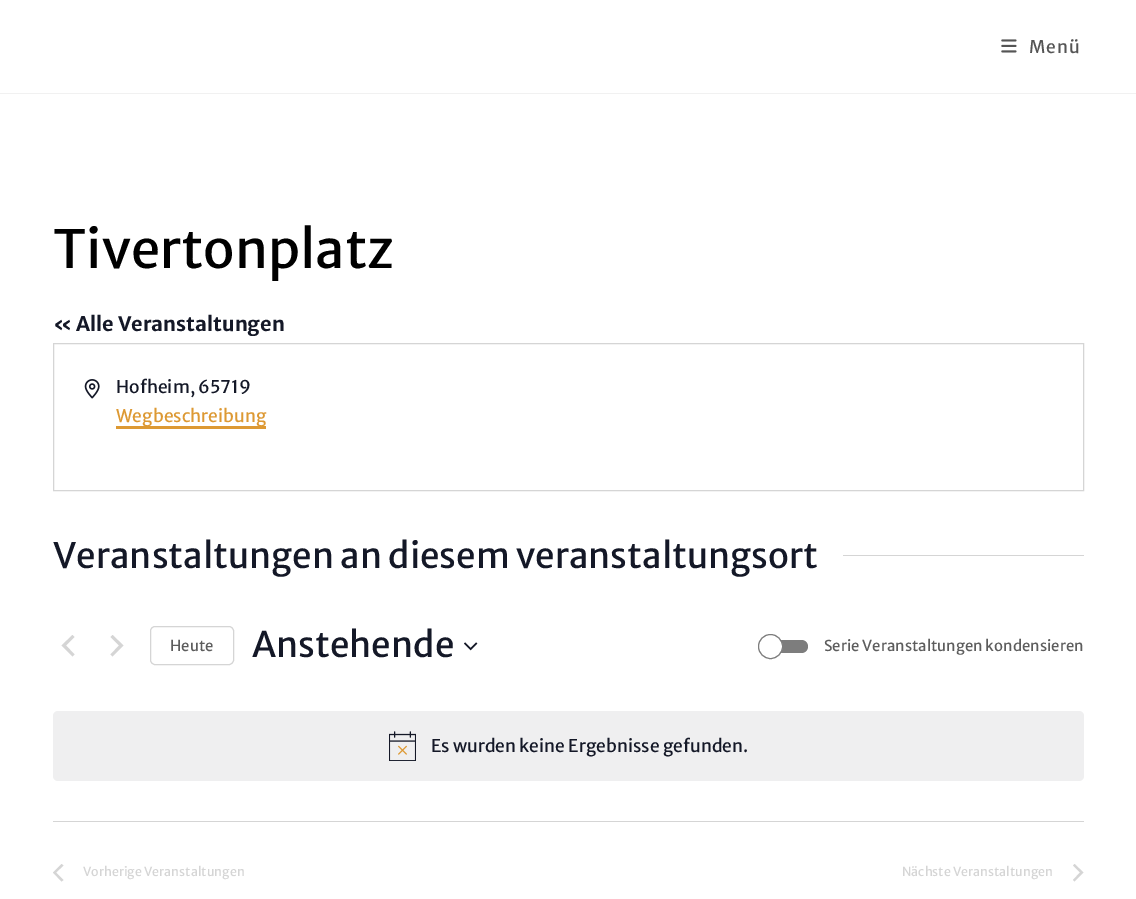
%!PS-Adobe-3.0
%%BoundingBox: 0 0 1136 899
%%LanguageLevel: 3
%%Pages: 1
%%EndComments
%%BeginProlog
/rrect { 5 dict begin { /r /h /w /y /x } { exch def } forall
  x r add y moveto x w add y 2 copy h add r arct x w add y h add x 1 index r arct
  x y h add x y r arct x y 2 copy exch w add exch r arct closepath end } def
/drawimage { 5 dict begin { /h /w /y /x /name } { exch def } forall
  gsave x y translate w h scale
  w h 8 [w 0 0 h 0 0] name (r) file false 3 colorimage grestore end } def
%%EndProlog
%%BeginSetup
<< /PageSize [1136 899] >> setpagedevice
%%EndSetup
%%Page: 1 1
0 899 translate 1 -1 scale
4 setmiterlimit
1 setgray
0 0 1136 899 rectfill
0.945 setgray
0 93 1136 1 rectfill
(images/1.raw) 1001 39 16 14 drawimage
0.835 setgray
53.5 343.5 1030 147 rectstroke
(images/2.raw) 84 379 16 20 drawimage
0.867 0.6 0.2 setrgbcolor
116 426 150 3 rectfill
0.835 setgray
843 555 241 1 rectfill
newpath 74.5 654.5 moveto 72.5 656.5 lineto 61.5 645.5 lineto 72.5 635 lineto 74.5 637 lineto 66 645.5 lineto closepath 110.5 637 moveto 112.5 635 lineto 123.5 645.5 lineto 112.5 656.5 lineto 110.5 654.5 lineto 119 645.5 lineto closepath fill
150.5 626.5 83 38 4.5 rrect stroke
(images/3.raw) 464 642 14 9 drawimage
0.49 setgray
758 640 50 13 6.5 rrect fill
1 setgray
newpath 770.5 646.5 12 0 360 arc closepath gsave fill grestore
0.49 setgray
stroke
0.937 0.937 0.941 setrgbcolor
53 711 1031 70 5 rrect fill
(images/4.raw) 389 731 27 30 drawimage
0.835 setgray
53 821 1031 1 rectfill
newpath 63.5 880 moveto 61.5 881.5 lineto 53 872.5 lineto 61.5 864 lineto 63.5 865.5 lineto 56 872.5 lineto closepath fill
newpath 1073 865.5 moveto 1074.5 864 lineto 1083.5 872.5 lineto 1074.5 881.5 lineto 1073 880 lineto 1080 872.5 lineto closepath fill
/MerriweatherSans-Regular [17.5 0 0 -17.5 0 0] selectfont
0.333 setgray
1029 53 moveto 1 0 (Menü) ashow
/MerriweatherSans-Regular [52.5 0 0 -52.5 0 0] selectfont
0 setgray
53 268 moveto (Tivertonplatz) show
/MerriweatherSans-Bold [20 0 0 -20 0 0] selectfont
0.078 0.094 0.153 setrgbcolor
53 331 moveto (« Alle Veranstaltungen) show
/MerriweatherSans-Regular [17.5 0 0 -17.5 0 0] selectfont
116 393 moveto (Hofheim, 65719) show
0.867 0.6 0.2 setrgbcolor
116 422 moveto (Wegbeschreibung) show
/MerriweatherSans-Regular [35 0 0 -35 0 0] selectfont
0.078 0.094 0.153 setrgbcolor
53 568 moveto (Veranstaltungen an diesem veranstaltungsort) show
/MerriweatherSans-Regular [15 0 0 -15 0 0] selectfont
0.365 setgray
170 651 moveto (Heute) show
/MerriweatherSans-Regular [35 0 0 -35 0 0] selectfont
0.078 0.094 0.153 setrgbcolor
252 657 moveto (Anstehende) show
/MerriweatherSans-Regular [15 0 0 -15 0 0] selectfont
0.365 setgray
824 651 moveto (Serie Veranstaltungen kondensieren) show
/MerriweatherSans-Regular [17.5 0 0 -17.5 0 0] selectfont
0.078 0.094 0.153 setrgbcolor
431 752 moveto (Es wurden keine Ergebnisse gefunden.) show
/MerriweatherSans-Regular [12.5 0 0 -12.5 0 0] selectfont
0.835 setgray
83 876 moveto (Vorherige Veranstaltungen) show
902 876 moveto (Nächste Veranstaltungen) show
showpage
%%EOF
